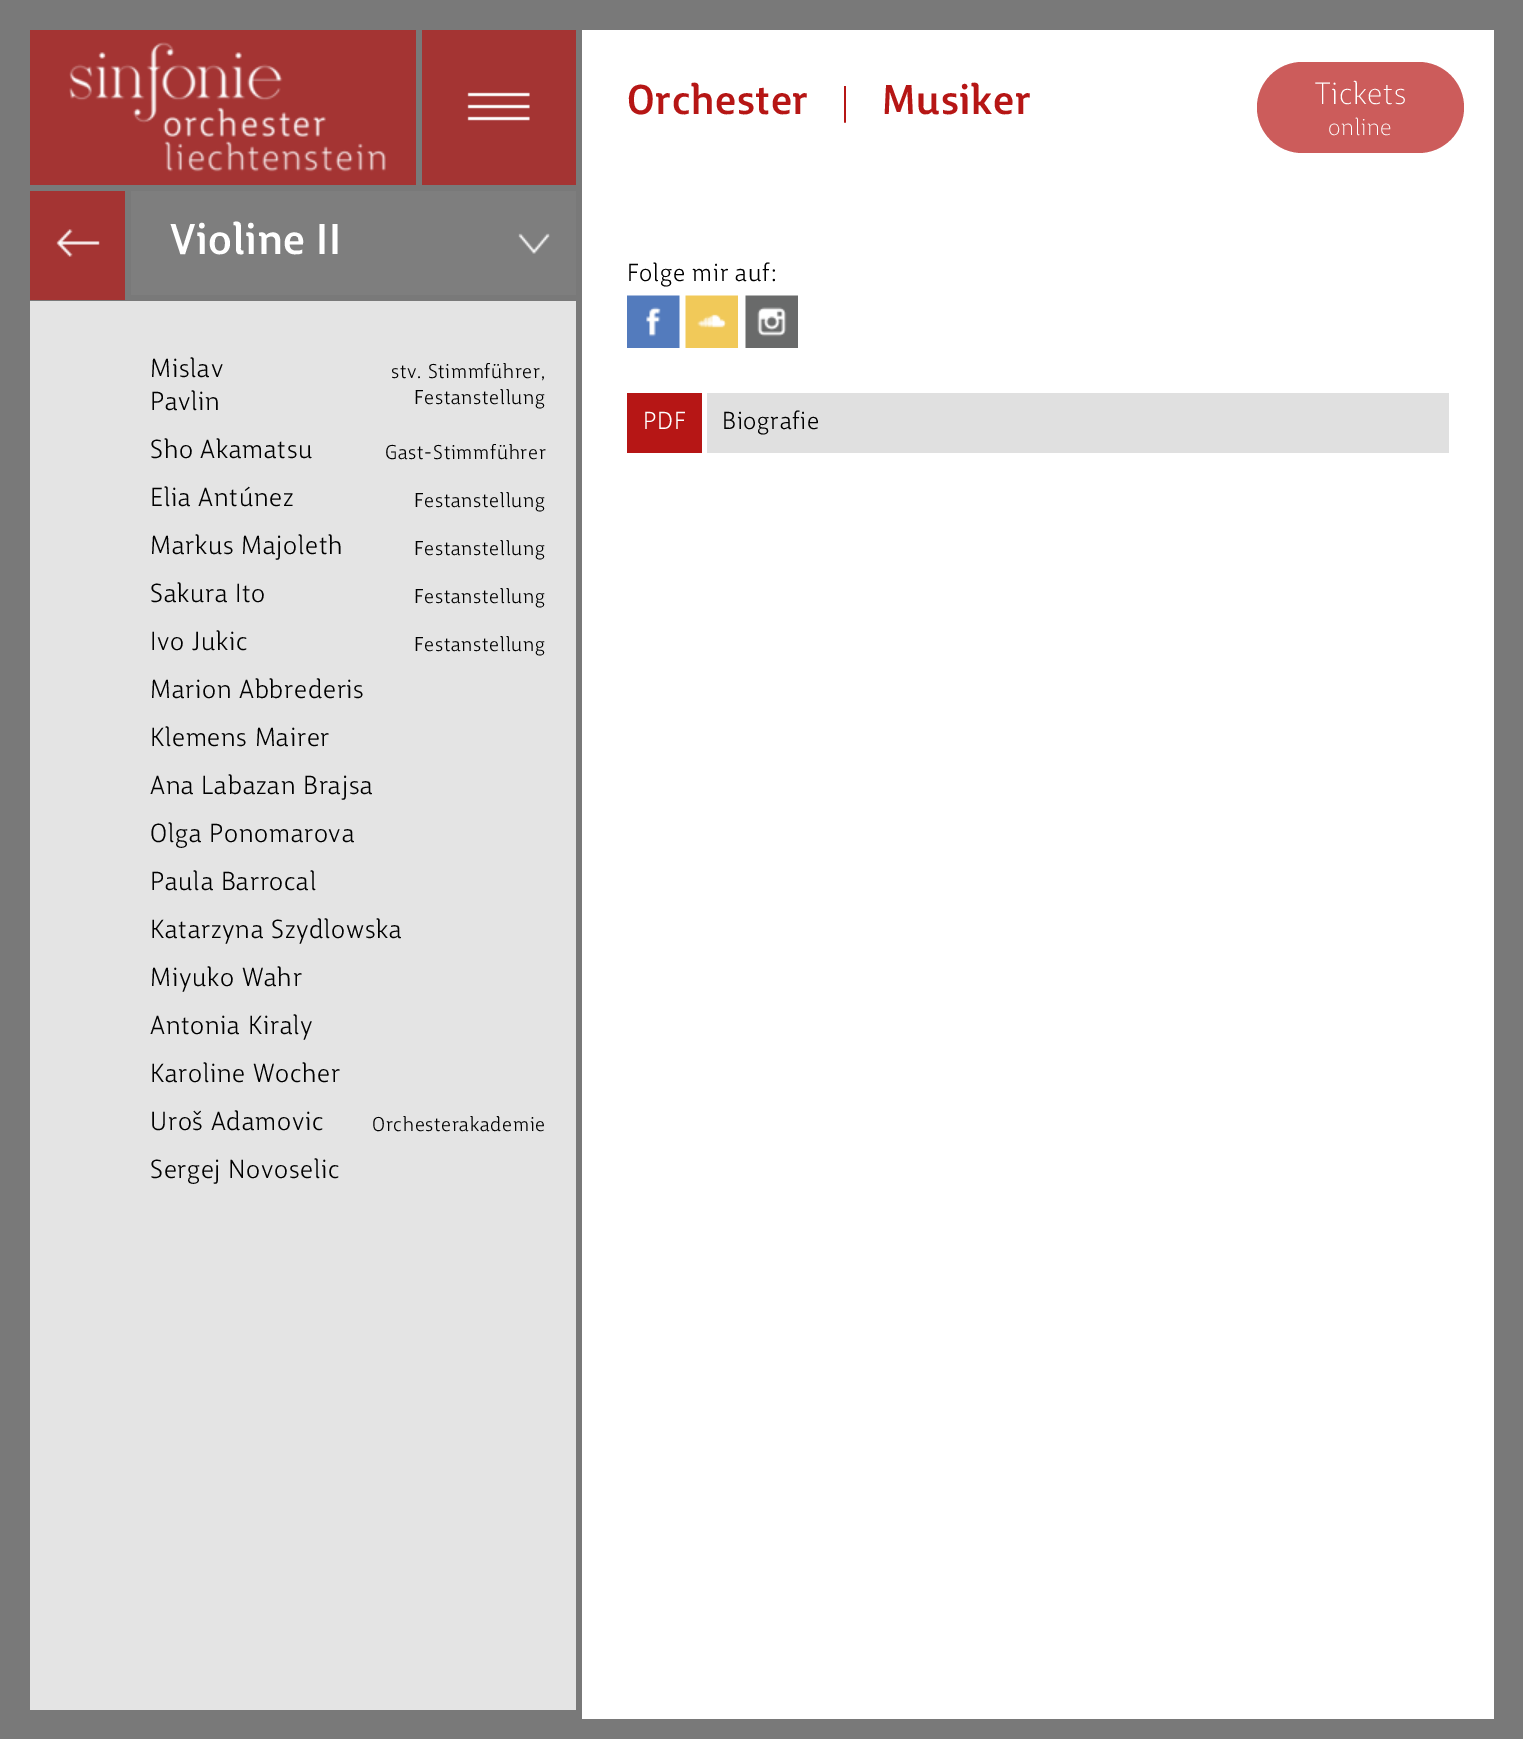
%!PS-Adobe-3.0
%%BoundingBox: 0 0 1523 1739
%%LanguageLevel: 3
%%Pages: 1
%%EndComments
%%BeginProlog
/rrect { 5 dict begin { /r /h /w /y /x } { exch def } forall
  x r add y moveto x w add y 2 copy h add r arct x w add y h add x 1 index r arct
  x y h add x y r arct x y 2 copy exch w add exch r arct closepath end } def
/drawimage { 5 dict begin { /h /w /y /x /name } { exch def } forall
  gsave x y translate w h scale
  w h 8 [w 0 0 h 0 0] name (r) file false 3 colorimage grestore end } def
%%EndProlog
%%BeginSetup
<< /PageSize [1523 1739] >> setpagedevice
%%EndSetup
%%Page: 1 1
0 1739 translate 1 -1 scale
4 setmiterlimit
0.475 setgray
0 0 1523 1739 rectfill
0.643 0.204 0.2 setrgbcolor
30 191 95 109 rectfill
(images/1.raw) 56 229 44 28 drawimage
0.494 setgray
131 191 445 104 rectfill
(images/2.raw) 518 233 32 21 drawimage
0.894 setgray
30 301 546 1409 rectfill
1 setgray
582 30 912 1689 rectfill
(images/3.raw) 627 295 53 53 drawimage
(images/4.raw) 685 295 53 53 drawimage
(images/5.raw) 745 295 53 53 drawimage
0.714 0.086 0.082 setrgbcolor
627 393 75 60 rectfill
0.878 setgray
707 393 742 60 rectfill
0.643 0.204 0.2 setrgbcolor
30 30 386 155 rectfill
(images/6.raw) 69 42 317 130 drawimage
422 30 154 155 rectfill
(images/7.raw) 467 92 63 29 drawimage
0.8 0.361 0.357 setrgbcolor
1257 62 207 91 45.5 rrect fill
/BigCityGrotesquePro-Medium [42 0 0 -42 0 0] selectfont
1 setgray
170 254 moveto 0.75 0 (Violine II) ashow
/BigCityGrotesquePro-Regular [25.5 0 0 -25.5 0 0] selectfont
0 setgray
150 377 moveto 0.75 0 (Mislav) ashow
/BigCityGrotesquePro-Regular [19.5 0 0 -19.5 0 0] selectfont
391 378 moveto 0.75 0 (stv. Stimmführer,) ashow
414 404 moveto 0.75 0 (Festanstellung) ashow
/BigCityGrotesquePro-Regular [25.5 0 0 -25.5 0 0] selectfont
150 410 moveto 0.75 0 (Pavlin) ashow
150 458 moveto 0.75 0 (Sho Akamatsu) ashow
/BigCityGrotesquePro-Regular [19.5 0 0 -19.5 0 0] selectfont
385 459 moveto 0.75 0 (Gast-Stimmführer) ashow
/BigCityGrotesquePro-Regular [25.5 0 0 -25.5 0 0] selectfont
150 506 moveto 0.75 0 (Elia Antúnez) ashow
/BigCityGrotesquePro-Regular [19.5 0 0 -19.5 0 0] selectfont
414 507 moveto 0.75 0 (Festanstellung) ashow
/BigCityGrotesquePro-Regular [25.5 0 0 -25.5 0 0] selectfont
150 554 moveto 0.75 0 (Markus Majoleth) ashow
/BigCityGrotesquePro-Regular [19.5 0 0 -19.5 0 0] selectfont
414 555 moveto 0.75 0 (Festanstellung) ashow
/BigCityGrotesquePro-Regular [25.5 0 0 -25.5 0 0] selectfont
150 602 moveto 0.75 0 (Sakura Ito) ashow
/BigCityGrotesquePro-Regular [19.5 0 0 -19.5 0 0] selectfont
414 603 moveto 0.75 0 (Festanstellung) ashow
/BigCityGrotesquePro-Regular [25.5 0 0 -25.5 0 0] selectfont
150 650 moveto 0.75 0 (Ivo Jukic) ashow
/BigCityGrotesquePro-Regular [19.5 0 0 -19.5 0 0] selectfont
414 651 moveto 0.75 0 (Festanstellung) ashow
/BigCityGrotesquePro-Regular [25.5 0 0 -25.5 0 0] selectfont
150 698 moveto 0.75 0 (Marion Abbrederis) ashow
150 746 moveto 0.75 0 (Klemens Mairer) ashow
150 794 moveto 0.75 0 (Ana Labazan Brajsa) ashow
150 842 moveto 0.75 0 (Olga Ponomarova) ashow
150 890 moveto 0.75 0 (Paula Barrocal) ashow
150 938 moveto 0.75 0 (Katarzyna Szydlowska) ashow
150 986 moveto 0.75 0 (Miyuko Wahr) ashow
150 1034 moveto 0.75 0 (Antonia Kiraly) ashow
150 1082 moveto 0.75 0 (Karoline Wocher) ashow
150 1130 moveto 0.75 0 (Uroš Adamovic) ashow
/BigCityGrotesquePro-Regular [19.5 0 0 -19.5 0 0] selectfont
372 1131 moveto 0.75 0 (Orchesterakademie) ashow
/BigCityGrotesquePro-Regular [25.5 0 0 -25.5 0 0] selectfont
150 1178 moveto 0.75 0 (Sergej Novoselic) ashow
/BigCityGrotesquePro-Medium [40.5 0 0 -40.5 0 0] selectfont
0.714 0.086 0.082 setrgbcolor
627 114 moveto 0.75 0 (Orchester) ashow
/LiberationSerif-Regular [40.5 0 0 -40.5 0 0] selectfont
841 114 moveto 0.75 0 (|) ashow
/BigCityGrotesquePro-Medium [40.5 0 0 -40.5 0 0] selectfont
882 114 moveto 0.75 0 (Musiker) ashow
/BigCityGrotesquePro-Regular [24 0 0 -24 0 0] selectfont
0 setgray
627 281 moveto 0.75 0 (Folge mir auf:) ashow
1 setgray
643 429 moveto 0.75 0 (PDF) ashow
0 setgray
722 429 moveto 0.75 0 (Biografie) ashow
/BigCityGrotesquePro-Light [30 0 0 -30 0 0] selectfont
1 setgray
1315 104 moveto 0.75 0 (Tickets) ashow
/BigCityGrotesquePro-Light [22.5 0 0 -22.5 0 0] selectfont
1328 135 moveto 0.75 0 (online) ashow
showpage
%%EOF
